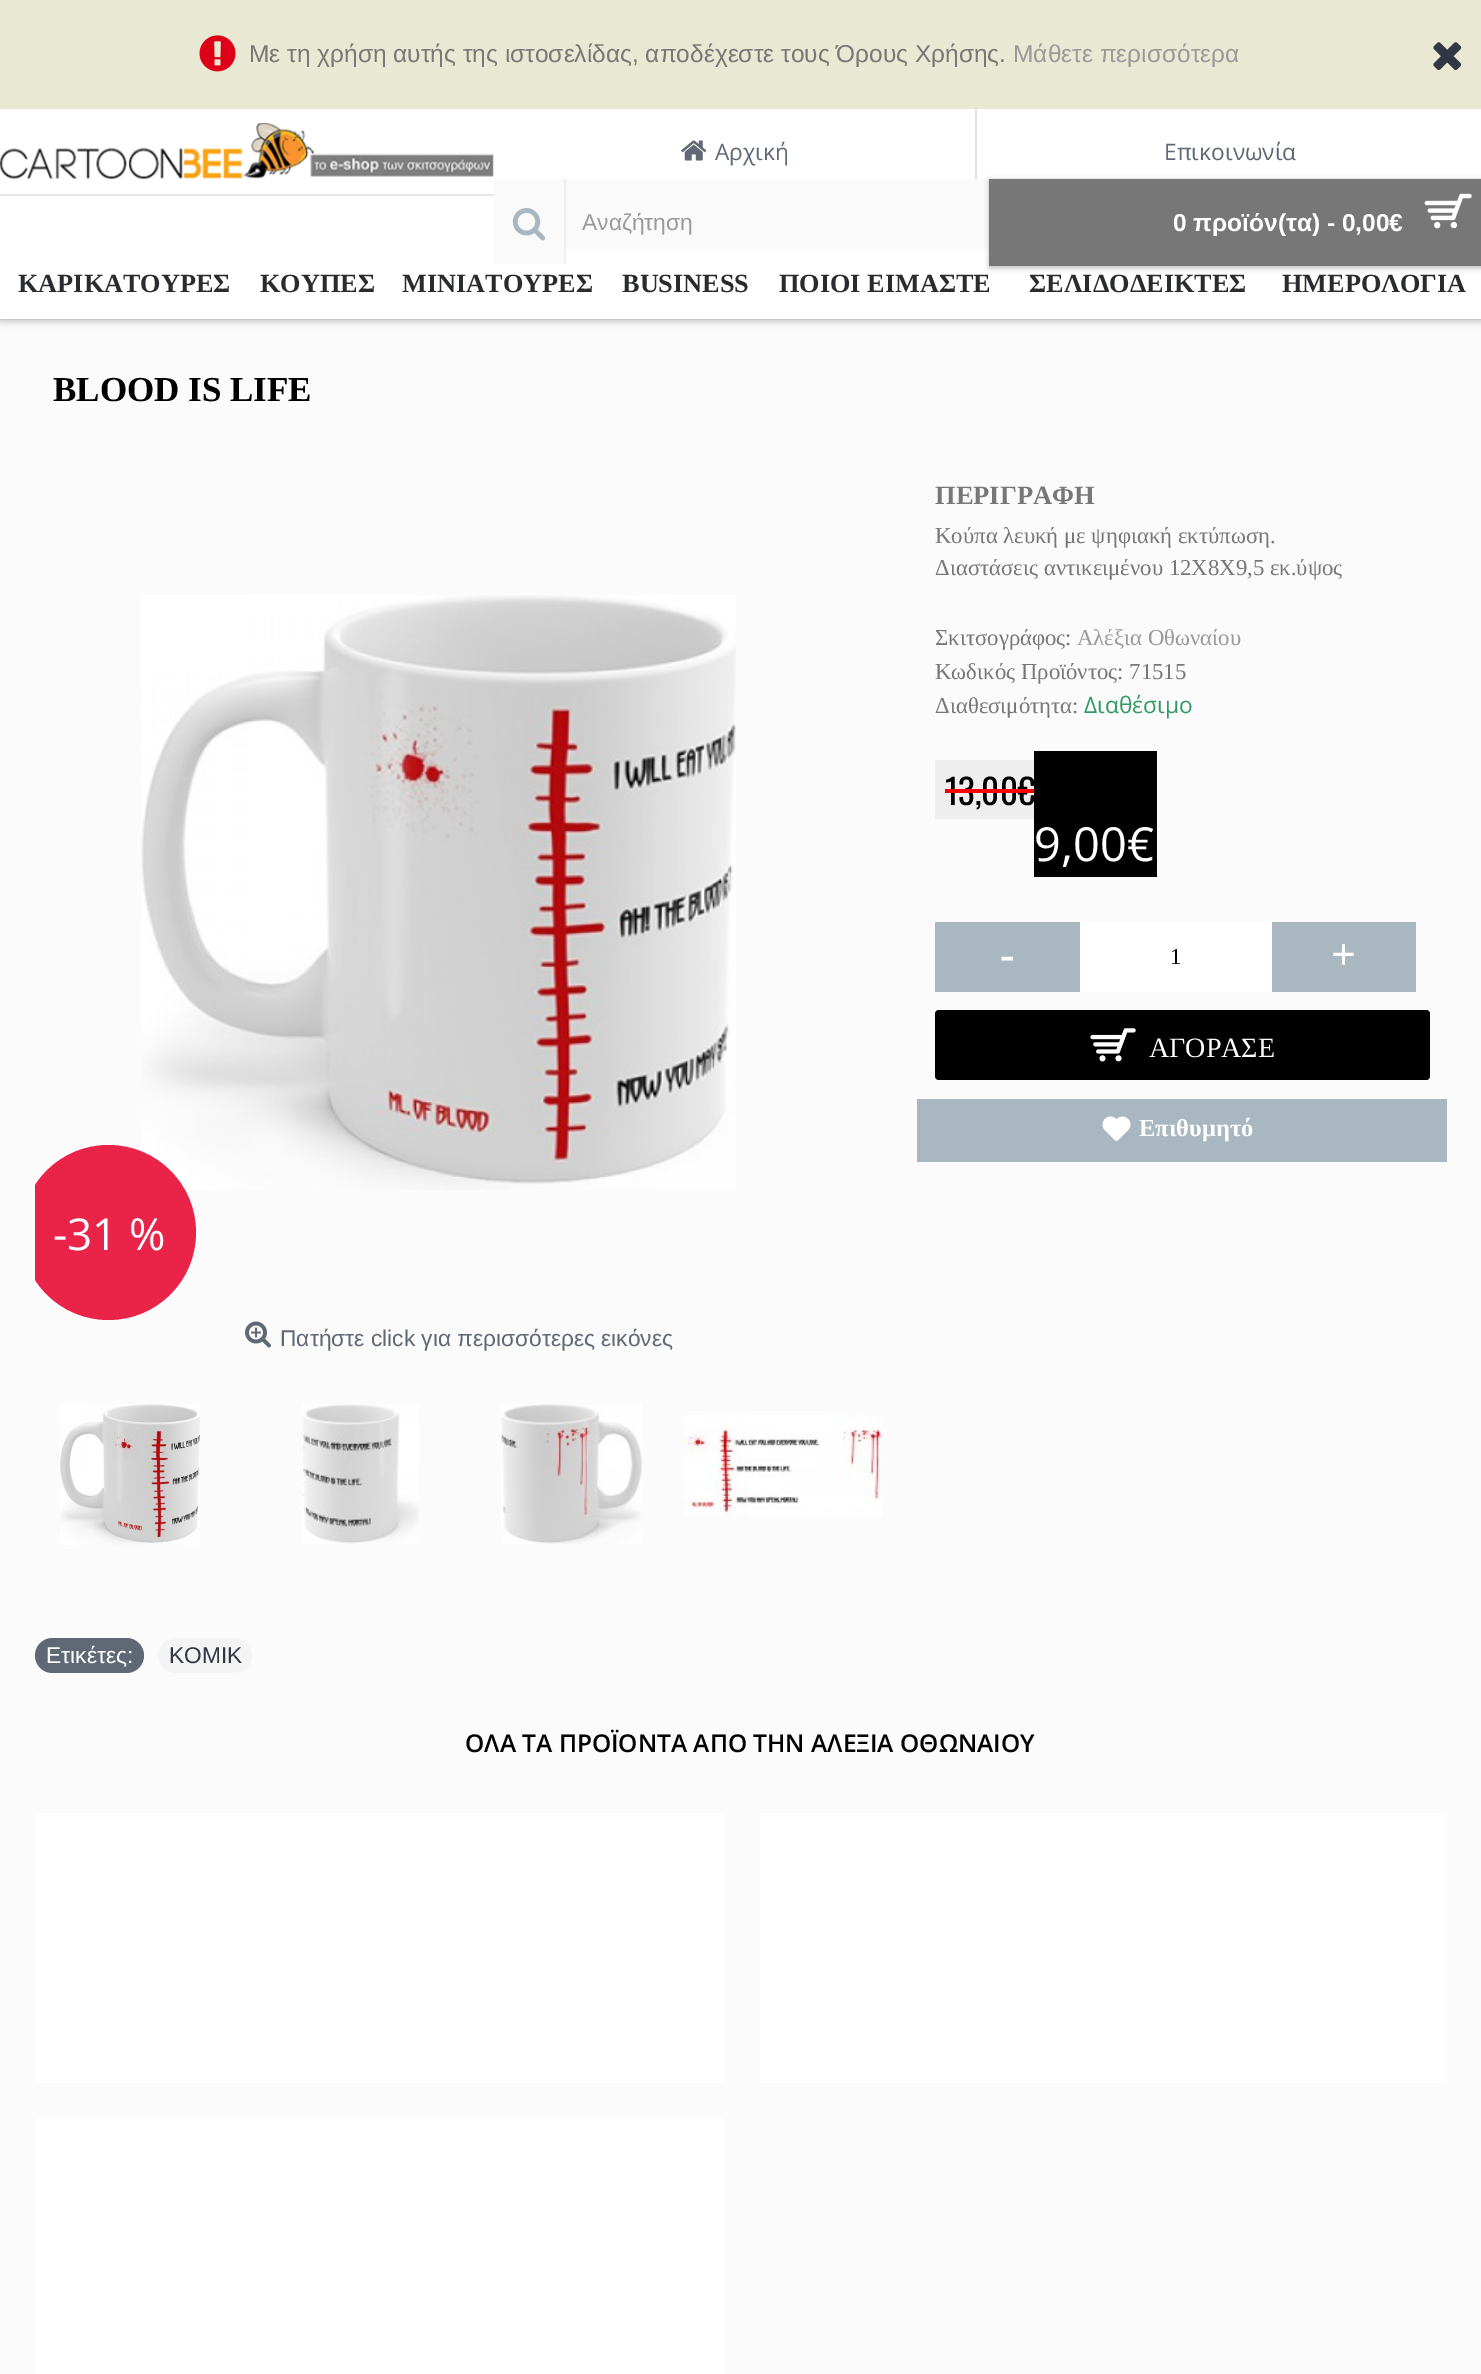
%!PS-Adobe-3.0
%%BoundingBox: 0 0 1481 2374
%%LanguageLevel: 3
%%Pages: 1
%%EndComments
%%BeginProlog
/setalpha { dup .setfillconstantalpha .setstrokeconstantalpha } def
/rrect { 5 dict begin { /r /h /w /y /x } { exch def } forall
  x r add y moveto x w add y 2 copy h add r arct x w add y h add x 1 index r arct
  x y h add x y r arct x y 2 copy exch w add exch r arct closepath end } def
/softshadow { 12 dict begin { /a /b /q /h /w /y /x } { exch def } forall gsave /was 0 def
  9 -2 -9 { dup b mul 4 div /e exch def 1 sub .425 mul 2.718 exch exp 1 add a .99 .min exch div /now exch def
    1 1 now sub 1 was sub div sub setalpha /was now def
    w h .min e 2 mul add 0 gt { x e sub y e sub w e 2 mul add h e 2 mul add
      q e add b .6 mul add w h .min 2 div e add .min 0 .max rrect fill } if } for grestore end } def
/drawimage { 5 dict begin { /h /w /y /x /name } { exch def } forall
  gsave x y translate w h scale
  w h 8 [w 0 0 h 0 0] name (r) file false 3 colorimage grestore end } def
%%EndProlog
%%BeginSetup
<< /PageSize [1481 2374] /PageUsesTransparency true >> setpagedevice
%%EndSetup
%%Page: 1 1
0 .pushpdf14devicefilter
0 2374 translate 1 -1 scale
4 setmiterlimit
0.984 setgray
0 0 1481 2374 rectfill
0 setgray
0 109 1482 210 0 4.5 0.4 softshadow
0.914 0.91 0.827 setrgbcolor
0 0 1481 109 rectfill
(images/1.raw) 199 35 37 37 drawimage
(images/2.raw) 1433 42 29 28 drawimage
1 setgray
0 109 1481 210 rectfill
(images/3.raw) 0 123 494 57 drawimage
0.894 setgray
975 109 2 70 rectfill
(images/4.raw) 681 140 26 21 drawimage
0.98 setgray
494 179 70 85 rectfill
0.933 setgray
564 179 2 85 rectfill
(images/5.raw) 512 208 34 33 drawimage
0.98 setgray
566 179 423 70 rectfill
0 setgray
989 180 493 88 0 2.5 0.25 softshadow
0.467 setgray
989 179 492 87 rectfill
(images/6.raw) 1424 193 48 36 drawimage
0.902 setgray
0 194 494 2 rectfill
0.933 setgray
935 760 99 59 rectfill
0.663 0.722 0.753 setrgbcolor
935 922 145 70 rectfill
1 setgray
1080 922 192 70 rectfill
0.663 0.722 0.753 setrgbcolor
1272 922 144 70 rectfill
0 setgray
935 1010 495 70 4 rrect fill
(images/7.raw) 1090 1028 46 34 drawimage
0.663 0.722 0.753 setrgbcolor
917 1099 530 63 rectfill
(images/8.raw) 1102 1116 29 25 drawimage
(images/9.raw) 141 595 595 595 drawimage
gsave
35 459 1412 1113 rectclip
0.918 0.137 0.286 setrgbcolor
newpath 108.5 1232.5 87.5 0 360 arc closepath fill
grestore
(images/10.raw) 245 1321 26 27 drawimage
(images/11.raw) 60 1404 140 141 drawimage
(images/12.raw) 302 1404 117 140 drawimage
(images/13.raw) 501 1404 141 140 drawimage
(images/14.raw) 684 1415 198 101 drawimage
0.373 0.408 0.455 setrgbcolor
35 1638 109 35 17.5 rrect fill
0.957 setgray
158 1638 94 35 17.5 rrect fill
1 setgray
35 1813 690 270 rectfill
760 1813 687 270 rectfill
35 2118 690 256 rectfill
/LiberationSans-Regular [24.5 0 0 -24.5 0 0] selectfont
0.467 setgray
249 62 moveto (Με τη χρήση αυτής της ιστοσελίδας, αποδέχεστε τους Όρους Χρήσης.) show
0.6 setgray
1013 62 moveto (Μάθετε περισσότερα) show
/OpenSans-Regular [22.75 0 0 -22.75 0 0] selectfont
0.373 0.408 0.455 setrgbcolor
715 160 moveto (Αρχική) show
1164 160 moveto (Επικοινωνία) show
/LiberationSans-Regular [22.75 0 0 -22.75 0 0] selectfont
0.6 setgray
582 230 moveto (Αναζήτηση) show
/LiberationSans-Bold [24.5 0 0 -24.5 0 0] selectfont
1 setgray
1173 231 moveto (0 προϊόν\(τα\) - 0,00€) show
/LiberationSerif-Bold [26.25 0 0 -26.25 0 0] selectfont
0.165 0.169 0.18 setrgbcolor
18 292 moveto (ΚΑΡΙΚΑΤΟΥΡΕΣ) show
260 292 moveto (ΚΟΥΠΕΣ) show
402 292 moveto (ΜΙΝΙΑΤΟΥΡΕΣ) show
622 292 moveto (BUSINESS) show
779 292 moveto (ΠΟΙΟΙ ΕΙΜΑΣΤΕ) show
1029 292 moveto (ΣΕΛΙΔΟΔΕΙΚΤΕΣ) show
1282 292 moveto (ΗΜΕΡΟΛΟΓΙΑ) show
/LiberationSerif-Bold [35 0 0 -35 0 0] selectfont
0 setgray
53 401 moveto (BLOOD IS LIFE) show
/LiberationSerif-Bold [26.5 0 0 -26.5 0 0] selectfont
0.467 setgray
935 504 moveto (ΠΕΡΙΓΡΑΦΗ) show
/LiberationSerif-Regular [22.75 0 0 -22.75 0 0] selectfont
935 543 moveto (Κούπα λευκή με ψηφιακή εκτύπωση.) show
935 575 moveto (Διαστάσεις αντικειμένου 12Χ8Χ9,5 εκ.ύψος) show
935 645 moveto (Σκιτσογράφος:) show
0.6 setgray
1077 645 moveto (Αλέξια Οθωναίου) show
0.467 setgray
935 679 moveto (Κωδικός Προϊόντος: 71515) show
935 713 moveto (Διαθεσιμότητα:) show
/OpenSans-Regular [22.75 0 0 -22.75 0 0] selectfont
0.2 0.6 0.396 setrgbcolor
1084 713 moveto (Διαθέσιμο) show
/Oswald-Regular [35 0 0 -35 0 0] selectfont
0 setgray
945 805 moveto (13,00€) show
1 0 0 setrgbcolor
945 789 91 4 rectfill
0 setgray
1034 751 123 126 rectfill
/OpenSans-Regular [47 0 0 -47 0 0] selectfont
1 setgray
1034 861 moveto (9,00€) show
/LiberationSerif-Bold [44 0 0 -44 0 0] selectfont
1000 969 moveto (-) show
/LiberationSerif-Regular [22.75 0 0 -22.75 0 0] selectfont
0 setgray
1170 964 moveto (1) show
/LiberationSerif-Bold [44 0 0 -44 0 0] selectfont
1 setgray
1331 969 moveto (+) show
/LiberationSerif-Regular [28 0 0 -28 0 0] selectfont
1149 1057 moveto (ΑΓΟΡΑΣΕ) show
/LiberationSerif-Bold [24.5 0 0 -24.5 0 0] selectfont
1139 1136 moveto (Επιθυμητό) show
/OpenSans-Regular [44 0 0 -44 0 0] selectfont
53 1250 moveto (-31 %) show
/LiberationSans-Regular [22.75 0 0 -22.75 0 0] selectfont
0.373 0.408 0.455 setrgbcolor
280 1346 moveto (Πατήστε click για περισσότερες εικόνες) show
1 setgray
46 1663 moveto (Ετικέτες:) show
0.2 0.216 0.271 setrgbcolor
169 1663 moveto (ΚΟΜΙΚ) show
/OpenSans-SemiBold [24.5 0 0 -24.5 0 0] selectfont
0 setgray
465 1752 moveto (ΟΛΑ ΤΑ ΠΡΟΪΟΝΤΑ ΑΠΟ ΤΗΝ ΑΛΕΞΙΑ ΟΘΩΝΑΙΟΥ) show
.poppdf14devicefilter showpage
%%EOF
